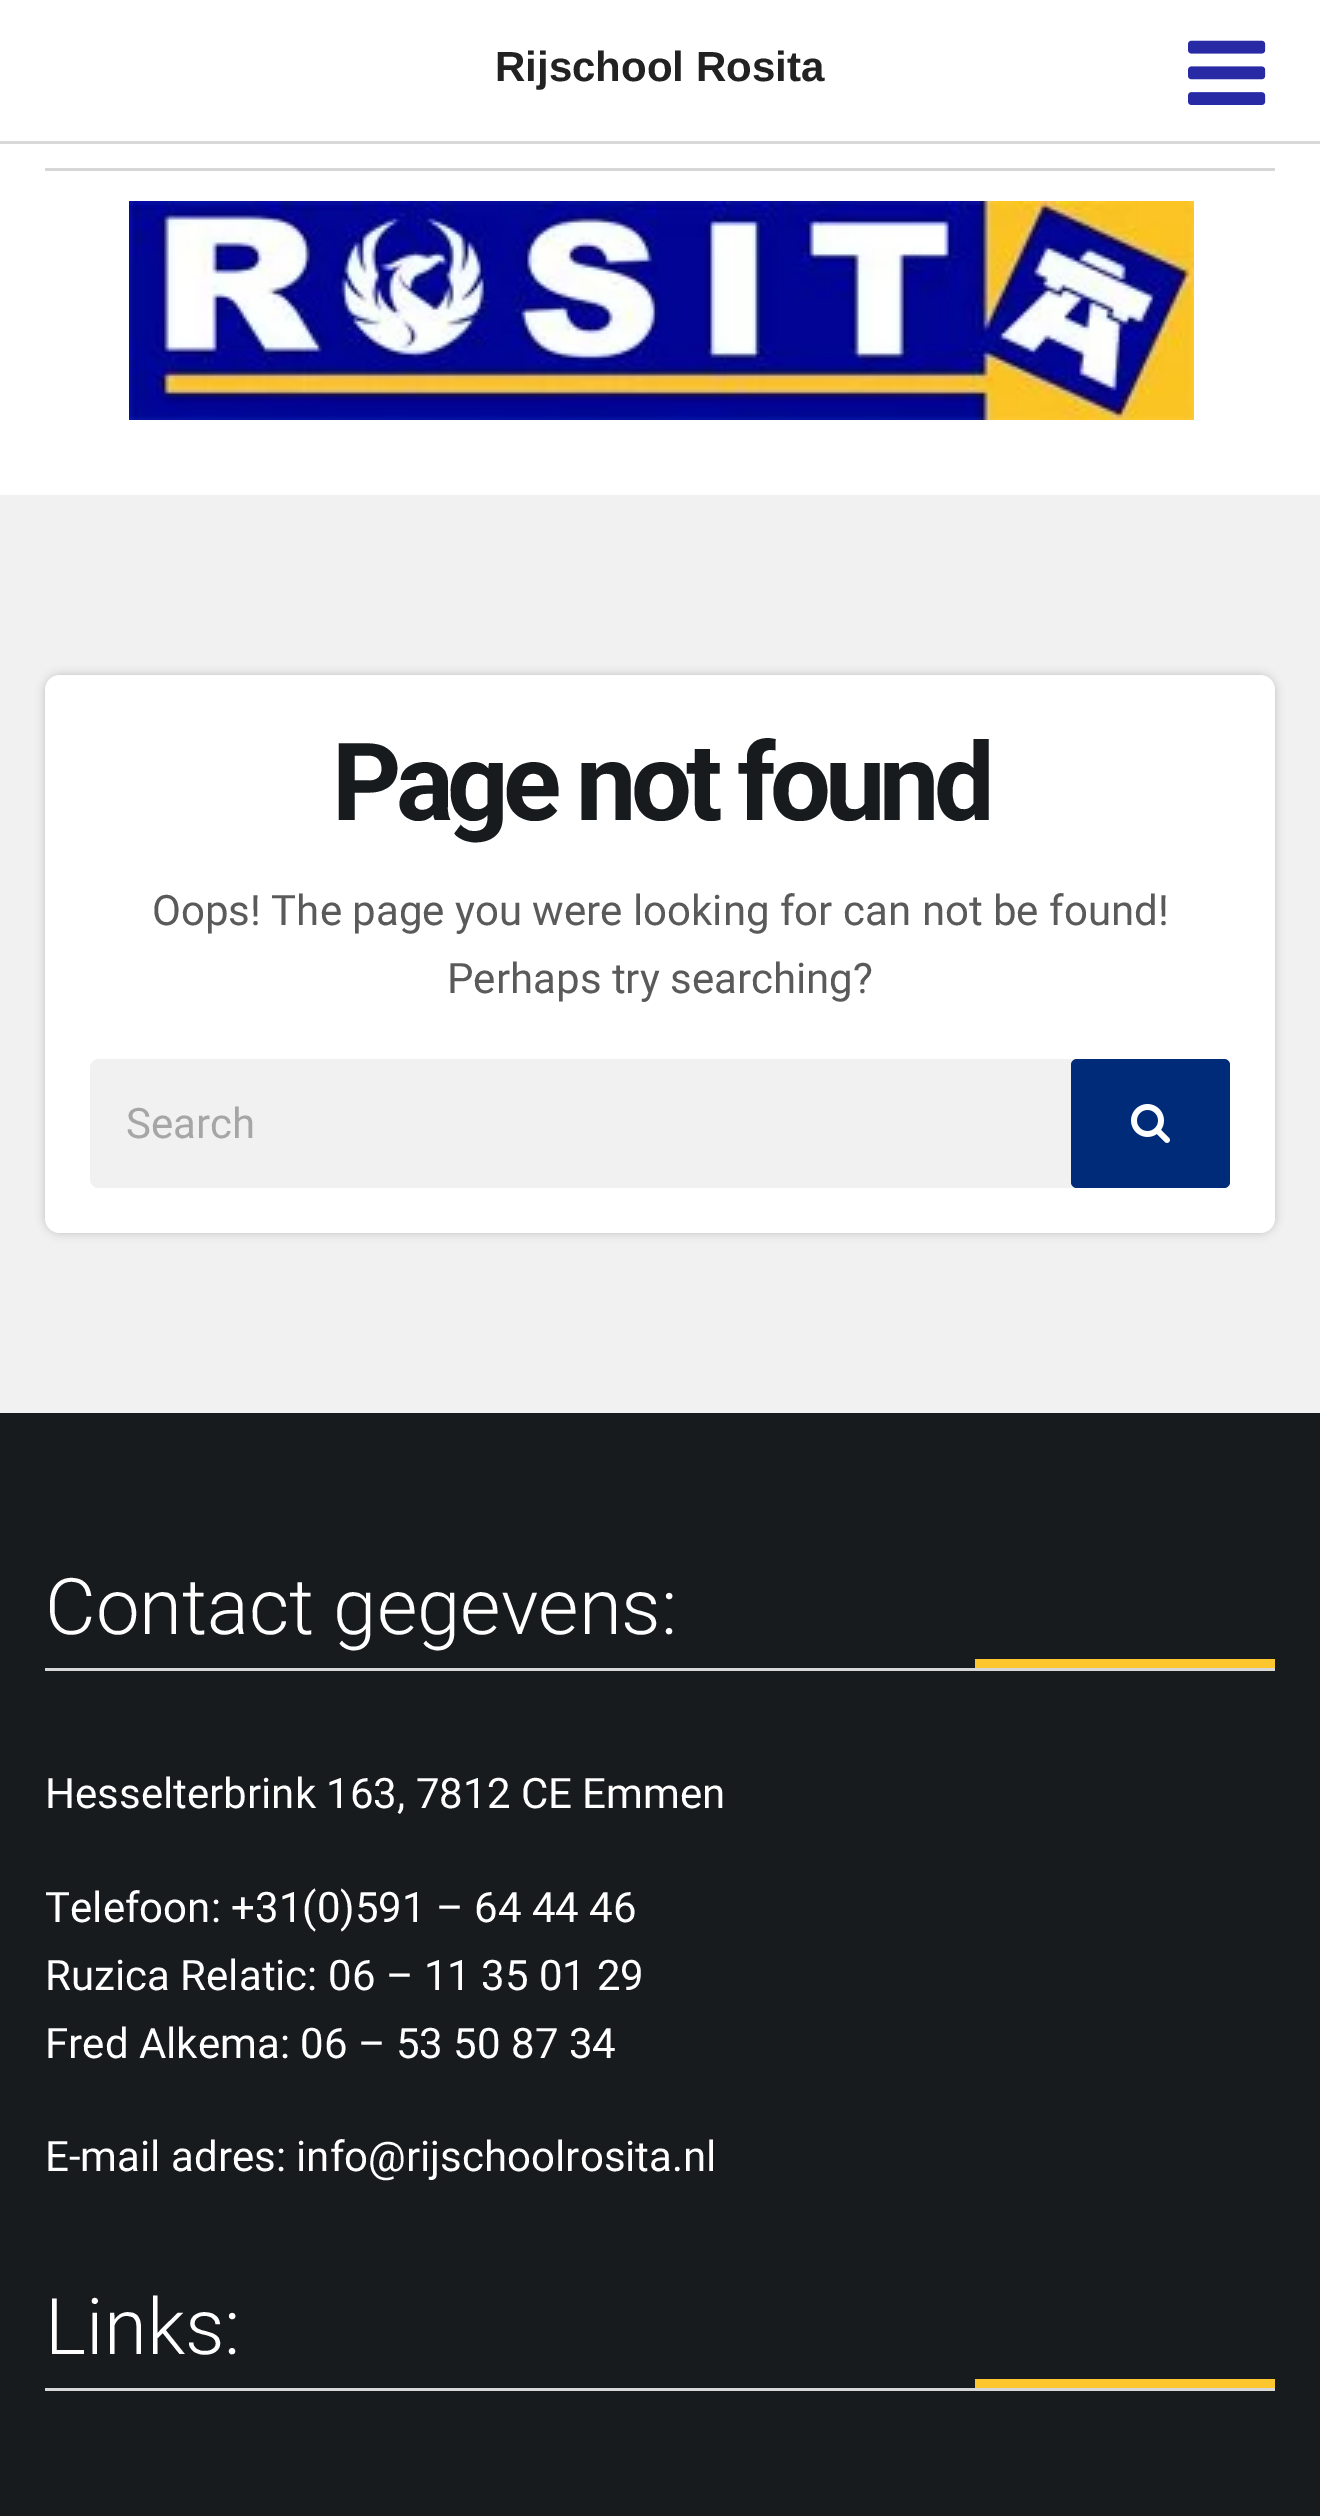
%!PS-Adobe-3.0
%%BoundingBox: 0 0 1320 2516
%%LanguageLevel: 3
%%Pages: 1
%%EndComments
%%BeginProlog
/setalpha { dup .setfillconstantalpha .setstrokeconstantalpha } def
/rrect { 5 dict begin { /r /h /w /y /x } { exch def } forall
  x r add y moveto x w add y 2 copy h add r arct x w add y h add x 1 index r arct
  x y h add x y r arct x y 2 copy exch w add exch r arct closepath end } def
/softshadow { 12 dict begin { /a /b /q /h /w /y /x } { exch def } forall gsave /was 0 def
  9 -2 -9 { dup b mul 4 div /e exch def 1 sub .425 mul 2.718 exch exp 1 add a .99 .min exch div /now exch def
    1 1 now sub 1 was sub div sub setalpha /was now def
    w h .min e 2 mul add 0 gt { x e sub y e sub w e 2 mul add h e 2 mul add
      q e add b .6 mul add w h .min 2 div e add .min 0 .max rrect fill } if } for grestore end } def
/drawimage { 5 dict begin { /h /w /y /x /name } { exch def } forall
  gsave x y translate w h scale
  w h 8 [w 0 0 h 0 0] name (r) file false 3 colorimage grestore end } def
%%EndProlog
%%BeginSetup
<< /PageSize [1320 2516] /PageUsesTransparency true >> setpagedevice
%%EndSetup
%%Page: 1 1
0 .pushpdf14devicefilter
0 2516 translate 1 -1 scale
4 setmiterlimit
0.945 setgray
0 0 1320 2516 rectfill
1 setgray
0 0 1320 141 rectfill
0.851 setgray
0 141 1320 3 rectfill
(images/1.raw) 1188 40 78 65 drawimage
1 setgray
0 144 1320 351 rectfill
0.843 setgray
45 168 1230 3 rectfill
(images/2.raw) 129 201 1065 219 drawimage
0 setgray
45 675 1230 558 15 4.5 0.2 softshadow
1 setgray
45 675 1230 558 15 rrect fill
0.945 setgray
90 1059 1140 129 9 rrect fill
0 0.169 0.471 setrgbcolor
1071 1059 159 129 6 rrect fill
(images/3.raw) 1131 1104 39 39 drawimage
0.09 0.106 0.118 setrgbcolor
0 1413 1320 1103 rectfill
0.843 setgray
45 1668 1230 3 rectfill
0.988 0.78 0.18 setrgbcolor
975 1659 300 9 rectfill
0.843 setgray
45 2388 1230 3 rectfill
0.988 0.78 0.18 setrgbcolor
975 2379 300 9 rectfill
/LiberationSans-Bold [42 0 0 -42 0 0] selectfont
0.133 setgray
495 81 moveto (Rijschool Rosita) show
/Roboto-Bold [108 0 0 -108 0 0] selectfont
0.09 0.106 0.118 setrgbcolor
332 820 moveto -6 0 (Page not found) ashow
/Roboto-Regular [42 0 0 -42 0 0] selectfont
0.353 setgray
152 925 moveto (Oops! The page you were looking for can not be found!) show
447 993 moveto (Perhaps try searching?) show
0.651 setgray
126 1138 moveto (Search) show
/Roboto-Light [78 0 0 -78 0 0] selectfont
1 setgray
45 1634 moveto (Contact gegevens:) show
/Roboto-Regular [42 0 0 -42 0 0] selectfont
45 1808 moveto (Hesselterbrink 163, 7812 CE Emmen) show
45 1922 moveto (Telefoon: +31\(0\)591 – 64 44 46) show
45 1990 moveto (Ruzica Relatic: 06 – 11 35 01 29) show
45 2058 moveto (Fred Alkema: 06 – 53 50 87 34) show
45 2171 moveto (E-mail adres: info@rijschoolrosita.nl) show
/Roboto-Light [78 0 0 -78 0 0] selectfont
45 2354 moveto (Links:) show
.poppdf14devicefilter showpage
%%EOF
